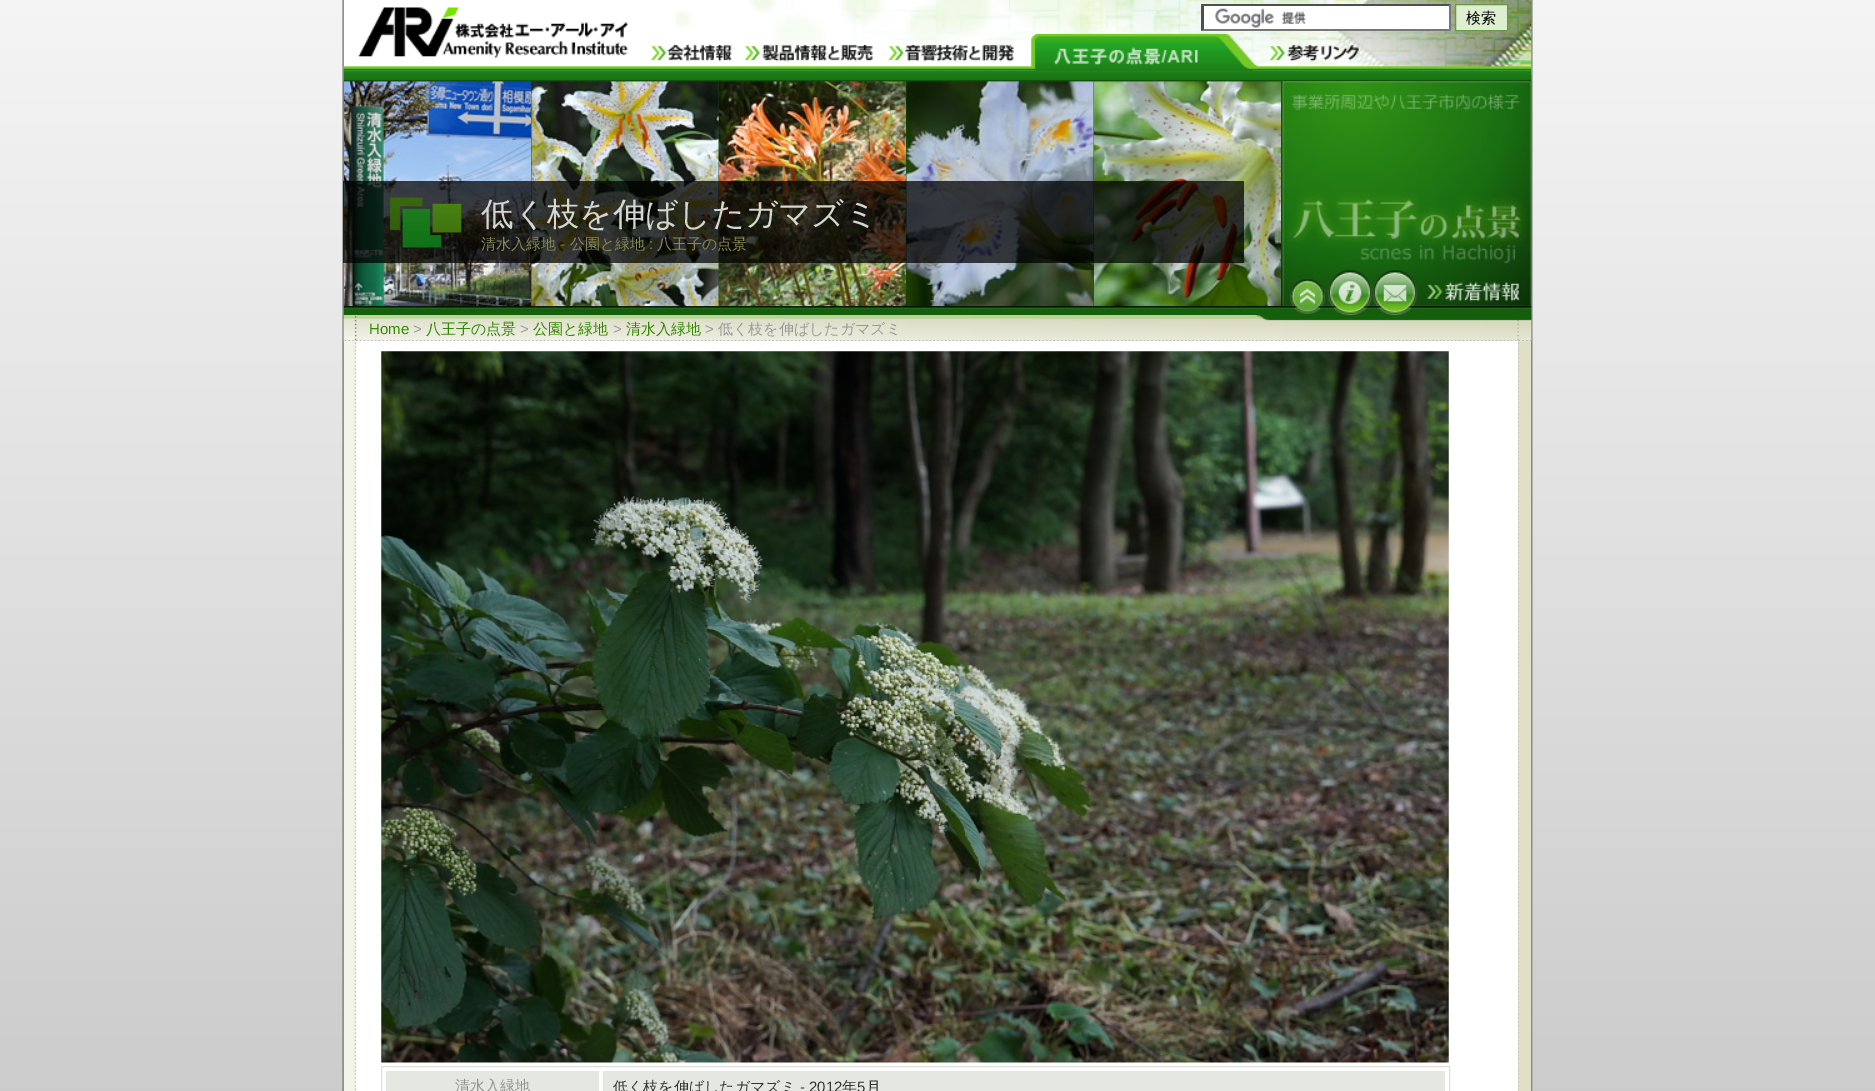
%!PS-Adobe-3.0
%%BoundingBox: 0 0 1875 1091
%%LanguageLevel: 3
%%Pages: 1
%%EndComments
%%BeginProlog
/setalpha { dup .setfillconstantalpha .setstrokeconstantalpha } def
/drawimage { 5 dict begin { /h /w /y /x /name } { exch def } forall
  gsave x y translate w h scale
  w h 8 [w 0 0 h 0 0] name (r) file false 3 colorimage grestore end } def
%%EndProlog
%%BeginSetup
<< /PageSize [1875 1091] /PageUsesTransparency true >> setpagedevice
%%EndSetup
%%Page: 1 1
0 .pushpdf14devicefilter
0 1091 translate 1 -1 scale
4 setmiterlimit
1 setgray
0 0 1875 1091 rectfill
(images/1.raw) 0 0 1875 1091 drawimage
1532 0 1 1091 rectfill
(images/2.raw) 342 0 1191 1091 drawimage
(images/4.raw) 674 0 858 75 drawimage
1201 4 250 27 rectfill
(images/3.raw) 1215 8 91 20 drawimage
0.31 setgray
newpath 1201 4 moveto 1451 4 lineto 1449 6 lineto 1204 6 lineto closepath fill
0.463 setgray
newpath 1451 4 moveto 1451 31 lineto 1449 29 lineto 1449 6 lineto closepath fill
newpath 1451 31 moveto 1201 31 lineto 1204 29 lineto 1449 29 lineto closepath fill
0.31 setgray
newpath 1201 31 moveto 1201 4 lineto 1204 6 lineto 1204 29 lineto closepath fill
0.871 0.933 0.816 setrgbcolor
newpath 1455.5 4.5 moveto 1507.5 4.5 lineto 1507.5 30.5 lineto 1455.5 30.5 lineto closepath gsave fill grestore
0.4 0.6 0.267 setrgbcolor
stroke
1 setgray
344 0 330 72 rectfill
(images/5.raw) 358 7 270 51 drawimage
(images/17.raw) 343 71 1189 248 drawimage
(images/6.raw) 343 66 1189 6 drawimage
(images/7.raw) 667 44 65 18 drawimage
(images/8.raw) 651 46 16 15 drawimage
(images/9.raw) 762 44 111 18 drawimage
(images/10.raw) 744 46 17 15 drawimage
(images/11.raw) 904 44 110 18 drawimage
(images/12.raw) 888 46 16 15 drawimage
(images/13.raw) 1031 33 228 38 drawimage
(images/14.raw) 1053 47 145 19 drawimage
(images/15.raw) 1287 44 73 18 drawimage
(images/16.raw) 1269 46 17 15 drawimage
(images/18.raw) 344 81 188 226 drawimage
(images/19.raw) 531 81 188 226 drawimage
(images/20.raw) 718 81 189 226 drawimage
(images/21.raw) 906 81 188 226 drawimage
(images/22.raw) 1093 81 189 226 drawimage
(images/30.raw) 343 315 1189 27 drawimage
(images/23.raw) 1281 81 251 237 drawimage
(images/24.raw) 1290 279 35 35 drawimage
(images/25.raw) 1327 270 46 45 drawimage
(images/26.raw) 1372 270 46 45 drawimage
(images/27.raw) 1425 279 100 30 drawimage
(images/28.raw) 1281 81 250 187 drawimage
0.73 setalpha
0 setgray
343 181 901 82 rectfill
1 setalpha
(images/29.raw) 389 197 73 51 drawimage
(images/31.raw) 344 340 1187 1 drawimage
1 setgray
356 341 1162 750 rectfill
(images/32.raw) 381 351 1068 712 drawimage
0.863 0.878 0.847 setrgbcolor
381.5 1066.5 1068 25 rectstroke
0.894 0.91 0.878 setrgbcolor
386 1071 213 20 rectfill
603 1071 842 20 rectfill
/WenQuanYiZenHei-Medium [15 0 0 -15 0 0] selectfont
0 setgray
1466 23 moveto (検索) show
/WenQuanYiZenHei-Medium [32.5 0 0 -32.5 0 0] selectfont
0.831 0.847 0.816 setrgbcolor
481 225 moveto (低く枝を伸ばしたガマズミ) show
/WenQuanYiZenHei-Medium [15 0 0 -15 0 0] selectfont
0.533 0.533 0.333 setrgbcolor
481 249 moveto (清水入緑地) show
/LiberationSans-Regular [15 0 0 -15 0 0] selectfont
560 249 moveto (-) show
/WenQuanYiZenHei-Medium [15 0 0 -15 0 0] selectfont
570 249 moveto (公園と緑地) show
/LiberationSans-Regular [15 0 0 -15 0 0] selectfont
649 249 moveto (:) show
/WenQuanYiZenHei-Medium [15 0 0 -15 0 0] selectfont
657 249 moveto (八王子の点景) show
/LiberationSans-Regular [15 0 0 -15 0 0] selectfont
0.2 0.533 0 setrgbcolor
369 334 moveto (Home) show
0.6 setgray
413 334 moveto (>) show
/WenQuanYiZenHei-Medium [15 0 0 -15 0 0] selectfont
0.2 0.533 0 setrgbcolor
426 334 moveto (八王子の点景) show
/LiberationSans-Regular [15 0 0 -15 0 0] selectfont
0.6 setgray
520 334 moveto (>) show
/WenQuanYiZenHei-Medium [15 0 0 -15 0 0] selectfont
0.2 0.533 0 setrgbcolor
533 334 moveto (公園と緑地) show
/LiberationSans-Regular [15 0 0 -15 0 0] selectfont
0.6 setgray
613 334 moveto (>) show
/WenQuanYiZenHei-Medium [15 0 0 -15 0 0] selectfont
0.2 0.533 0 setrgbcolor
626 334 moveto (清水入緑地) show
/LiberationSans-Regular [15 0 0 -15 0 0] selectfont
0.6 setgray
705 334 moveto (>) show
/WenQuanYiZenHei-Medium [15 0 0 -15 0 0] selectfont
718 334 moveto (低く枝を伸ばしたガマズミ) show
0.573 0.58 0.565 setrgbcolor
455 1091 moveto (清水入緑地) show
0.196 0.204 0.188 setrgbcolor
613 1092 moveto (低く枝を伸ばしたガマズミ) show
/LiberationSans-Regular [15 0 0 -15 0 0] selectfont
800 1092 moveto (- 2012) show
/WenQuanYiZenHei-Medium [15 0 0 -15 0 0] selectfont
842 1092 moveto (年) show
/LiberationSans-Regular [15 0 0 -15 0 0] selectfont
857 1092 moveto (5) show
/WenQuanYiZenHei-Medium [15 0 0 -15 0 0] selectfont
866 1092 moveto (月) show
.poppdf14devicefilter showpage
%%EOF
